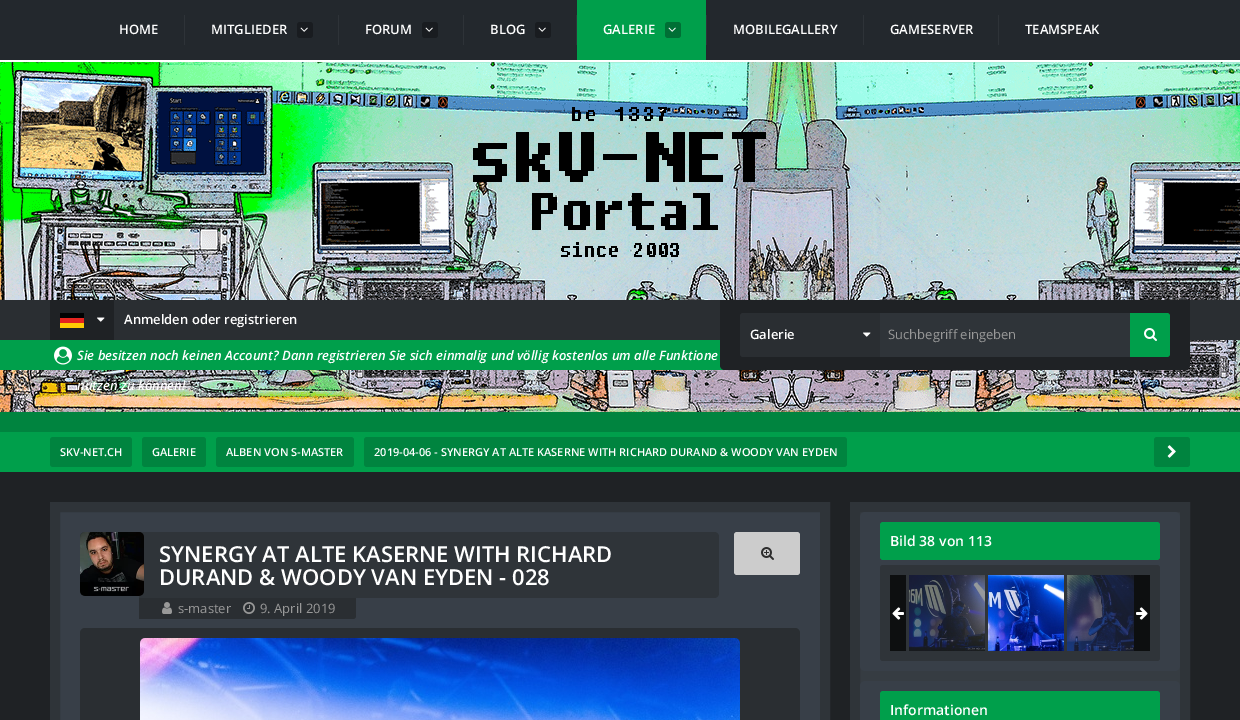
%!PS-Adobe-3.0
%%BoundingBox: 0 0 1240 720
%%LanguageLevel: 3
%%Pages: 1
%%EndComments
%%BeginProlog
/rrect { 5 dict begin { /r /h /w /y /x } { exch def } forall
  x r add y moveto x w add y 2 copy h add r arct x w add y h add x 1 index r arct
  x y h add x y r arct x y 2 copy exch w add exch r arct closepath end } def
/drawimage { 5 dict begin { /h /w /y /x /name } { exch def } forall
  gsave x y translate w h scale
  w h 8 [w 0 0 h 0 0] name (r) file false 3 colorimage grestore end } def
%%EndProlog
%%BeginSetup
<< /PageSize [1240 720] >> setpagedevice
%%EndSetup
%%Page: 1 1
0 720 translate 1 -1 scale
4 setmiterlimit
0.122 0.133 0.145 setrgbcolor
0 0 1240 720 rectfill
0.137 0.157 0.176 setrgbcolor
0 0 1240 60 rectfill
1 setgray
0 60 1240 2 rectfill
0.18 0.2 0.22 setrgbcolor
184 15 1 30 rectfill
0.098 0.11 0.125 setrgbcolor
297 22 16 16 3 rrect fill
(images/1.raw) 300 27 8 5 drawimage
0.18 0.2 0.22 setrgbcolor
338 15 1 30 rectfill
0.098 0.11 0.125 setrgbcolor
422 22 16 16 3 rrect fill
(images/1.raw) 425 27 8 5 drawimage
0.18 0.2 0.22 setrgbcolor
463 15 1 30 rectfill
0.098 0.11 0.125 setrgbcolor
535 22 16 16 3 rrect fill
(images/1.raw) 538 27 8 5 drawimage
0 0.624 0.294 setrgbcolor
577 0 129 60 rectfill
0.18 0.2 0.22 setrgbcolor
576 15 1 30 rectfill
0 0.435 0.208 setrgbcolor
665 22 16 16 3 rrect fill
(images/2.raw) 668 27 8 5 drawimage
0.18 0.2 0.22 setrgbcolor
706 15 1 30 rectfill
863 15 1 30 rectfill
998 15 1 30 rectfill
(images/3.raw) 0 62 1240 350 drawimage
(images/4.raw) 473 107 293 150 drawimage
0.165 0.18 0.196 setrgbcolor
0 300 1240 40 rectfill
0.122 0.133 0.145 setrgbcolor
50 300 64 40 rectfill
0.004 0.008 0.008 setrgbcolor
60 313 24 5 rectfill
1 0.8 0.016 setrgbcolor
60 323 24 5 rectfill
0.898 0.141 0.125 setrgbcolor
60 318 24 5 rectfill
(images/5.raw) 97 317 8 5 drawimage
0 0.624 0.294 setrgbcolor
0 340 725 30 rectfill
0.122 0.133 0.145 setrgbcolor
newpath 720 300 moveto 1190 300 lineto 1190 365 lineto 1190 368 1188 370 1185 370 curveto 725 370 lineto 722 370 720 368 720 365 curveto closepath fill
0.165 0.18 0.196 setrgbcolor
newpath 743 313 moveto 880 313 lineto 880 357 lineto 743 357 lineto 741.5 357 740 355.5 740 354 curveto 740 316 lineto 740 314.5 741.5 313 743 313 curveto closepath fill
(images/6.raw) 863 332 8 5 drawimage
0.184 0.204 0.224 setrgbcolor
880 313 250 44 rectfill
0 0.624 0.294 setrgbcolor
newpath 1130 313 moveto 1167 313 lineto 1168.5 313 1170 314.5 1170 316 curveto 1170 354 lineto 1170 355.5 1168.5 357 1167 357 curveto 1130 357 lineto closepath fill
(images/7.raw) 1144 328 13 13 drawimage
(images/8.raw) 54 346 18 19 drawimage
0 0.518 0.247 setrgbcolor
0 412 1240 20 rectfill
0 0.624 0.294 setrgbcolor
0 432 1240 40 rectfill
0 0.518 0.247 setrgbcolor
50 437 82 30 3 rrect fill
142 437 64 30 3 rrect fill
216 437 138 30 3 rrect fill
364 437 483 30 3 rrect fill
1154 437 36 30 3 rrect fill
(images/9.raw) 1167 445 9 13 drawimage
0.22 0.247 0.282 setrgbcolor
newpath 55 507 moveto 825 507 lineto 825 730 lineto 55 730 lineto closepath gsave fill grestore
0.184 0.204 0.224 setrgbcolor
10 setlinewidth
stroke
newpath 139 532 moveto 714 532 lineto 717 532 719 534 719 537 curveto 719 593 lineto 719 596 717 598 714 598 curveto 139 598 lineto closepath fill
(images/10.raw) 80 532 64 64 drawimage
0.165 0.18 0.196 setrgbcolor
newpath 139 598 moveto 356 598 lineto 356 616 lineto 356 617.5 354.5 619 353 619 curveto 139 619 lineto closepath fill
(images/11.raw) 162 602 10 12 drawimage
(images/12.raw) 243 602 12 12 drawimage
0.8 setgray
734 532 66 43 3 rrect fill
(images/13.raw) 761 547 13 13 drawimage
0.165 0.18 0.196 setrgbcolor
80 628 720 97 5 rrect fill
(images/14.raw) 140 638 600 82 drawimage
0.212 0.235 0.259 setrgbcolor
newpath 855 507 moveto 1185 507 lineto 1185 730 lineto 855 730 lineto closepath gsave fill grestore
0.184 0.204 0.224 setrgbcolor
stroke
0.22 0.247 0.282 setrgbcolor
860 512 320 159 5 rrect fill
0 0.624 0.294 setrgbcolor
880 522 280 38 3 rrect fill
0.184 0.204 0.224 setrgbcolor
880 565 280 96 3 rrect fill
0.051 0.059 0.063 setrgbcolor
890 575 16 76 rectfill
(images/15.raw) 892 607 12 13 drawimage
(images/16.raw) 909 575 76 76 drawimage
(images/17.raw) 988 575 76 76 drawimage
(images/18.raw) 1067 575 67 76 drawimage
1134 575 16 76 rectfill
(images/19.raw) 1136 607 12 13 drawimage
0.22 0.247 0.282 setrgbcolor
860 681 320 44 5 rrect fill
0 0.624 0.294 setrgbcolor
880 691 280 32 3 rrect fill
/OpenSans-SemiBold [13 0 0 -13 0 0] selectfont
1 setgray
119 34 moveto (HOME) show
211 34 moveto (MITGLIEDER) show
365 34 moveto (FORUM) show
490 34 moveto (BLOG) show
603 34 moveto (GALERIE) show
733 34 moveto (MOBILEGALLERY) show
890 34 moveto (GAMESERVER) show
1025 34 moveto (TEAMSPEAK) show
124 324 moveto (Anmelden oder registrieren) show
750 339 moveto (Galerie) show
/OpenSans-Regular [13 0 0 -13 0 0] selectfont
0.6 setgray
888 339 moveto (Suchbegriff eingeben) show
/OpenSans-SemiBoldItalic [13 0 0 -13 0 0] selectfont
1 setgray
77 360 moveto (Sie besitzen noch keinen Account? Dann registrieren Sie sich einmalig und völlig kostenlos um alle Funktione) show
77 390 moveto (nutzen zu können!) show
/OpenSans-SemiBold [11 0 0 -11 0 0] selectfont
60 456 moveto (SKV-NET.CH) show
152 456 moveto (GALERIE) show
226 456 moveto (ALBEN VON S-MASTER) show
374 456 moveto (2019-04-06 - SYNERGY AT ALTE KASERNE WITH RICHARD DURAND & WOODY VAN EYDEN) show
/OpenSans-SemiBold [22 0 0 -22 0 0] selectfont
159 562 moveto (SYNERGY AT ALTE KASERNE WITH RICHARD) show
159 585 moveto (DURAND & WOODY VAN EYDEN - 028) show
/OpenSans-Regular [13 0 0 -13 0 0] selectfont
0.6 setgray
178 613 moveto (s-master) show
260 613 moveto (9. April 2019) show
/OpenSans-SemiBold [14 0 0 -14 0 0] selectfont
1 setgray
890 546 moveto (Bild 38 von 113) show
890 715 moveto (Informationen) show
showpage
%%EOF
